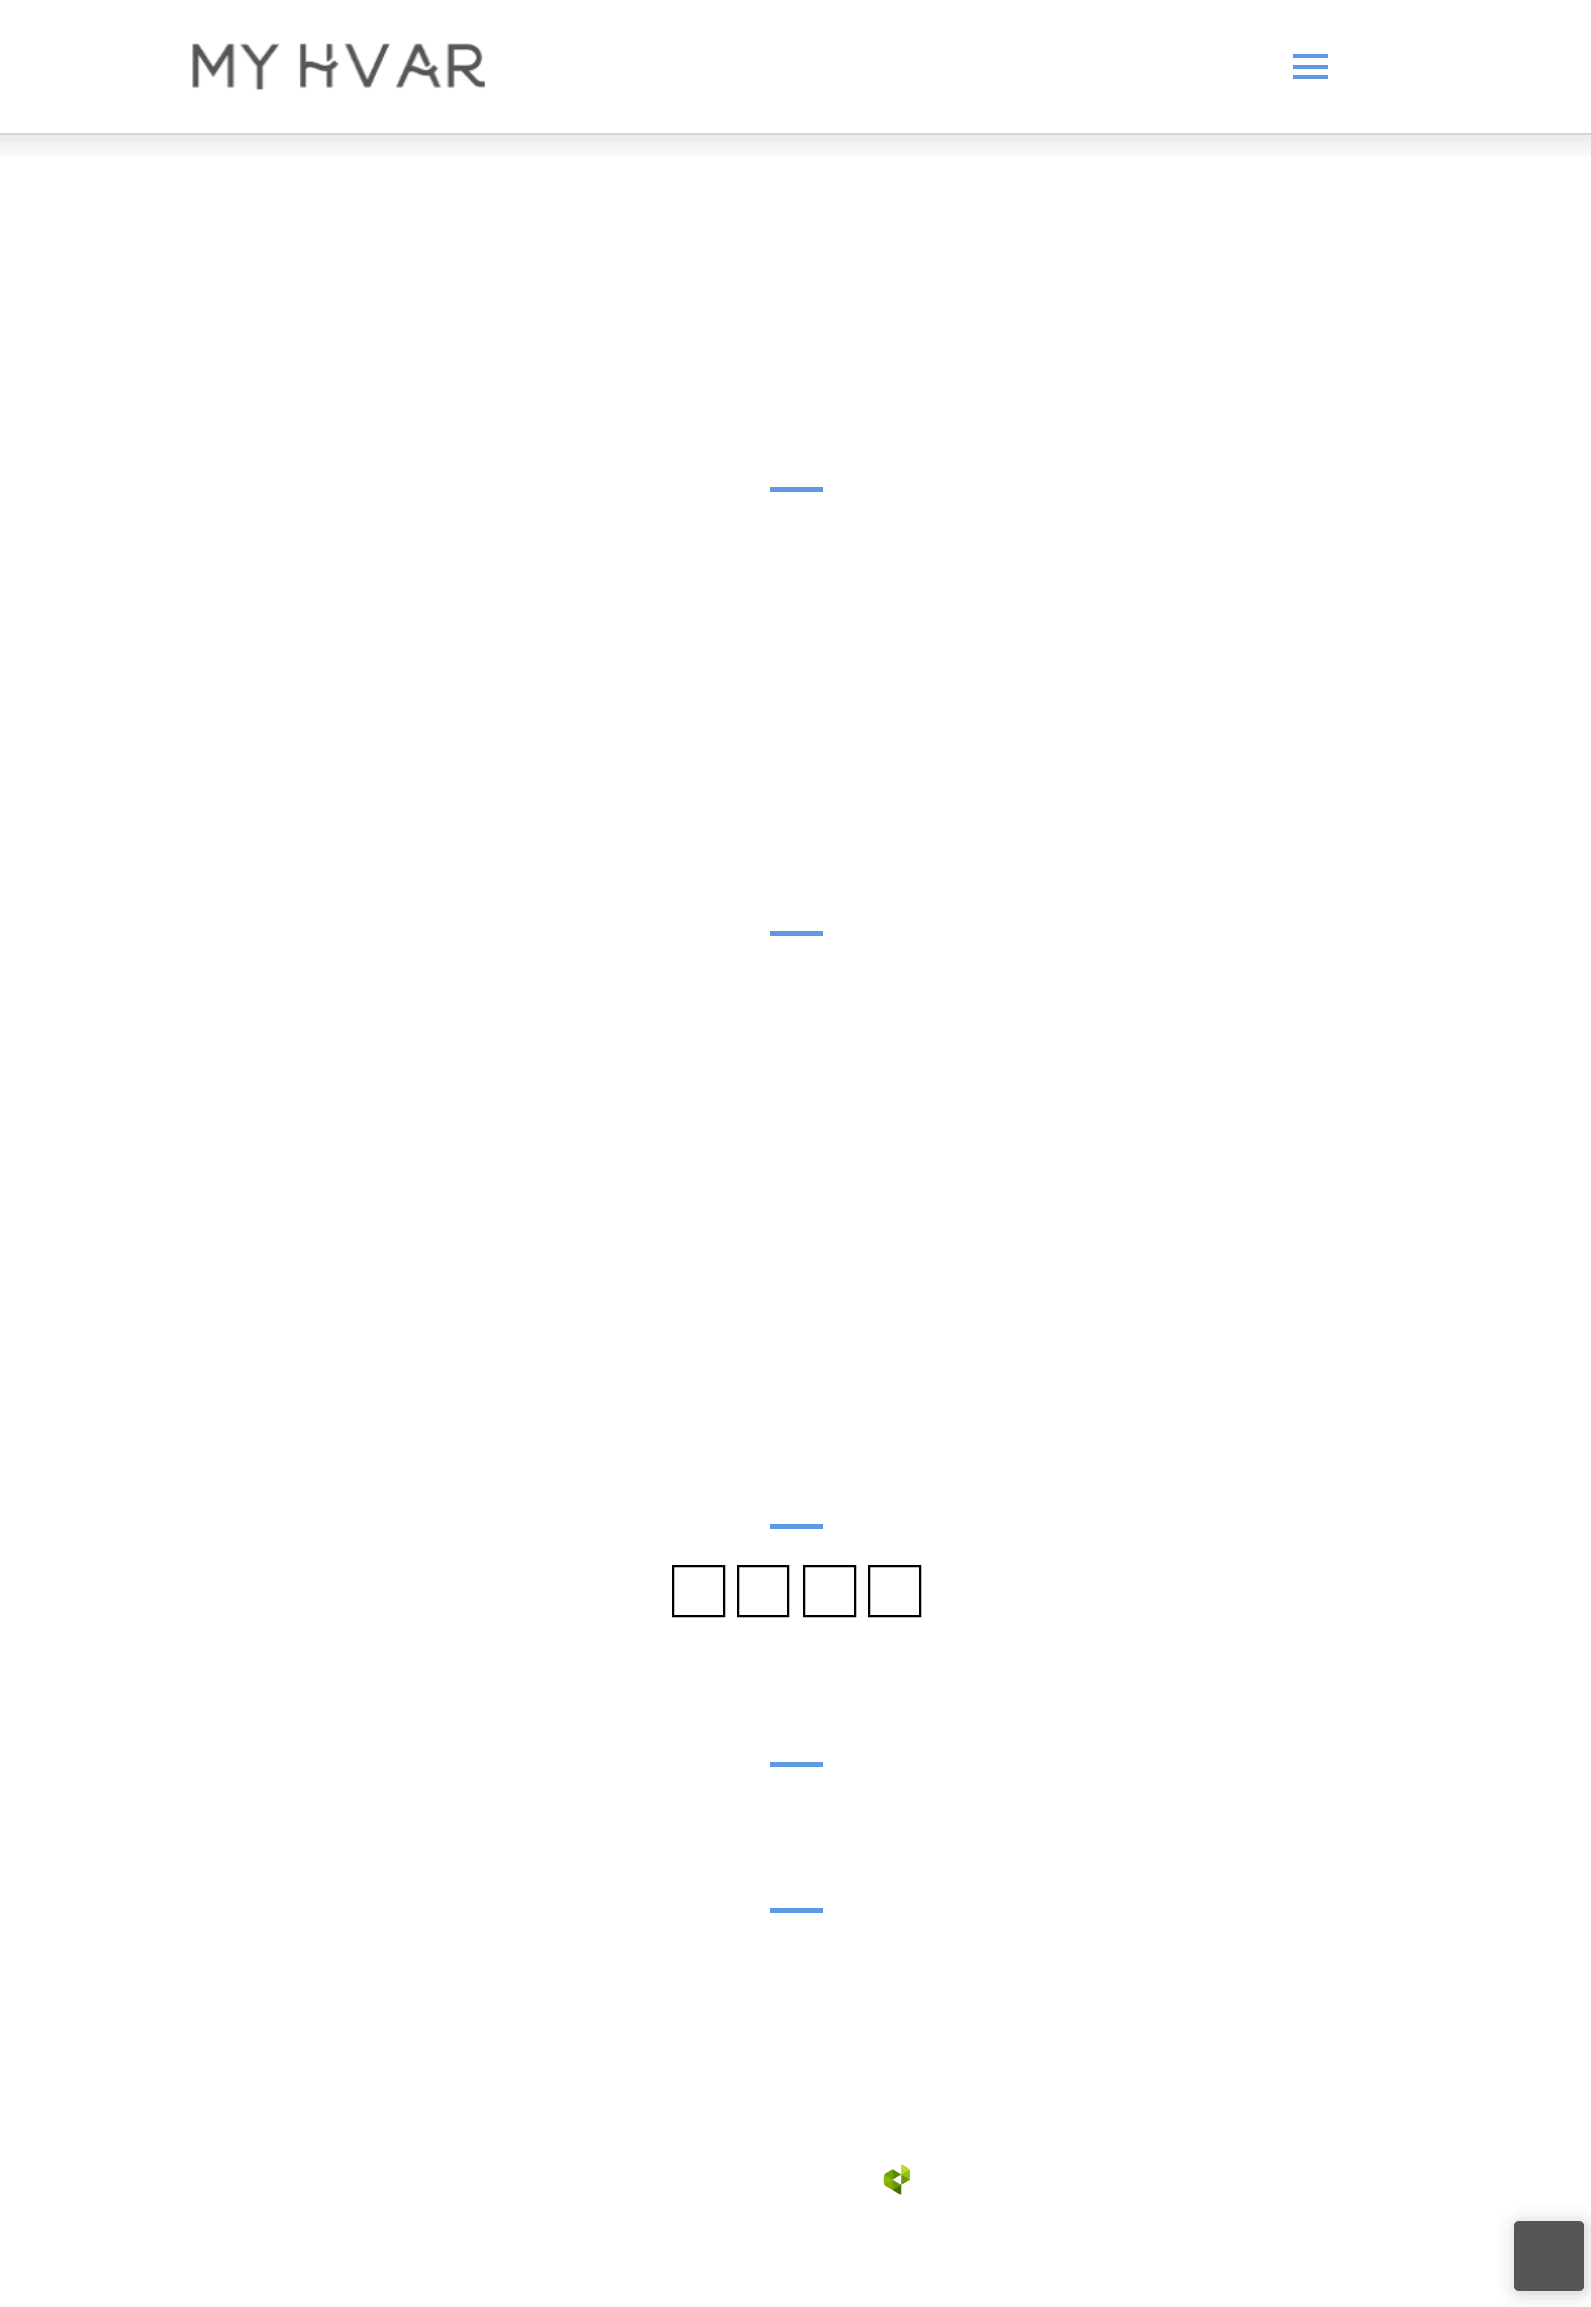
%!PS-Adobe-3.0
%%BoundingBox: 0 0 1591 2307
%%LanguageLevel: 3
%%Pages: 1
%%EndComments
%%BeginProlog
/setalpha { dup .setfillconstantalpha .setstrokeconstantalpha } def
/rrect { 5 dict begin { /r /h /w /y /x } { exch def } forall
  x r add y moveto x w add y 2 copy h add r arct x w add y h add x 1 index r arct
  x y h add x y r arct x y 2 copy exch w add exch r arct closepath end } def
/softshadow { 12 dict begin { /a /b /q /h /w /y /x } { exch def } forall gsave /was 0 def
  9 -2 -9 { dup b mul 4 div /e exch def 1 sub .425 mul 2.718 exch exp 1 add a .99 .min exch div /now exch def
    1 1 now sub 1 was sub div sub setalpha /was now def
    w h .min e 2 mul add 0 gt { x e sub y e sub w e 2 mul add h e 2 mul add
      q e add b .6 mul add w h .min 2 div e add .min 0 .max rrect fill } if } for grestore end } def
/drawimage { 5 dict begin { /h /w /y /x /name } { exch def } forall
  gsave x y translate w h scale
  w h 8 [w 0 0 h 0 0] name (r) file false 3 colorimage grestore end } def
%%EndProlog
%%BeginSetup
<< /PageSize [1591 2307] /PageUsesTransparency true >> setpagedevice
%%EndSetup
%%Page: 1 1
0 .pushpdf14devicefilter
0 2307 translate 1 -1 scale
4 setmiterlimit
1 setgray
0 0 1591 2307 rectfill
gsave
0 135 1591 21 rectclip
0 setgray
-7 -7 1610 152 0 13 0.1 softshadow
grestore
0.831 setgray
0 133 1591 2 rectfill
(images/1.raw) 192 43 293 47 drawimage
0.373 0.6 0.894 setrgbcolor
1293 54 35 4 rectfill
1293 65 35 4 rectfill
1293 75 35 4 rectfill
770 487 53 5 rectfill
770 931 53 5 rectfill
770 1524 53 5 rectfill
0 setgray
2 setlinewidth
673 1566 51 50 rectstroke
738 1566 50 50 rectstroke
804 1566 51 50 rectstroke
869 1566 51 50 rectstroke
0.373 0.6 0.894 setrgbcolor
770 1762 53 5 rectfill
770 1908 53 5 rectfill
(images/2.raw) 883 2164 27 31 drawimage
0 setgray
1516 2223 70 70 5 9 0.2 softshadow
0.337 setgray
1514 2221 70 70 5 rrect fill
.poppdf14devicefilter showpage
%%EOF
